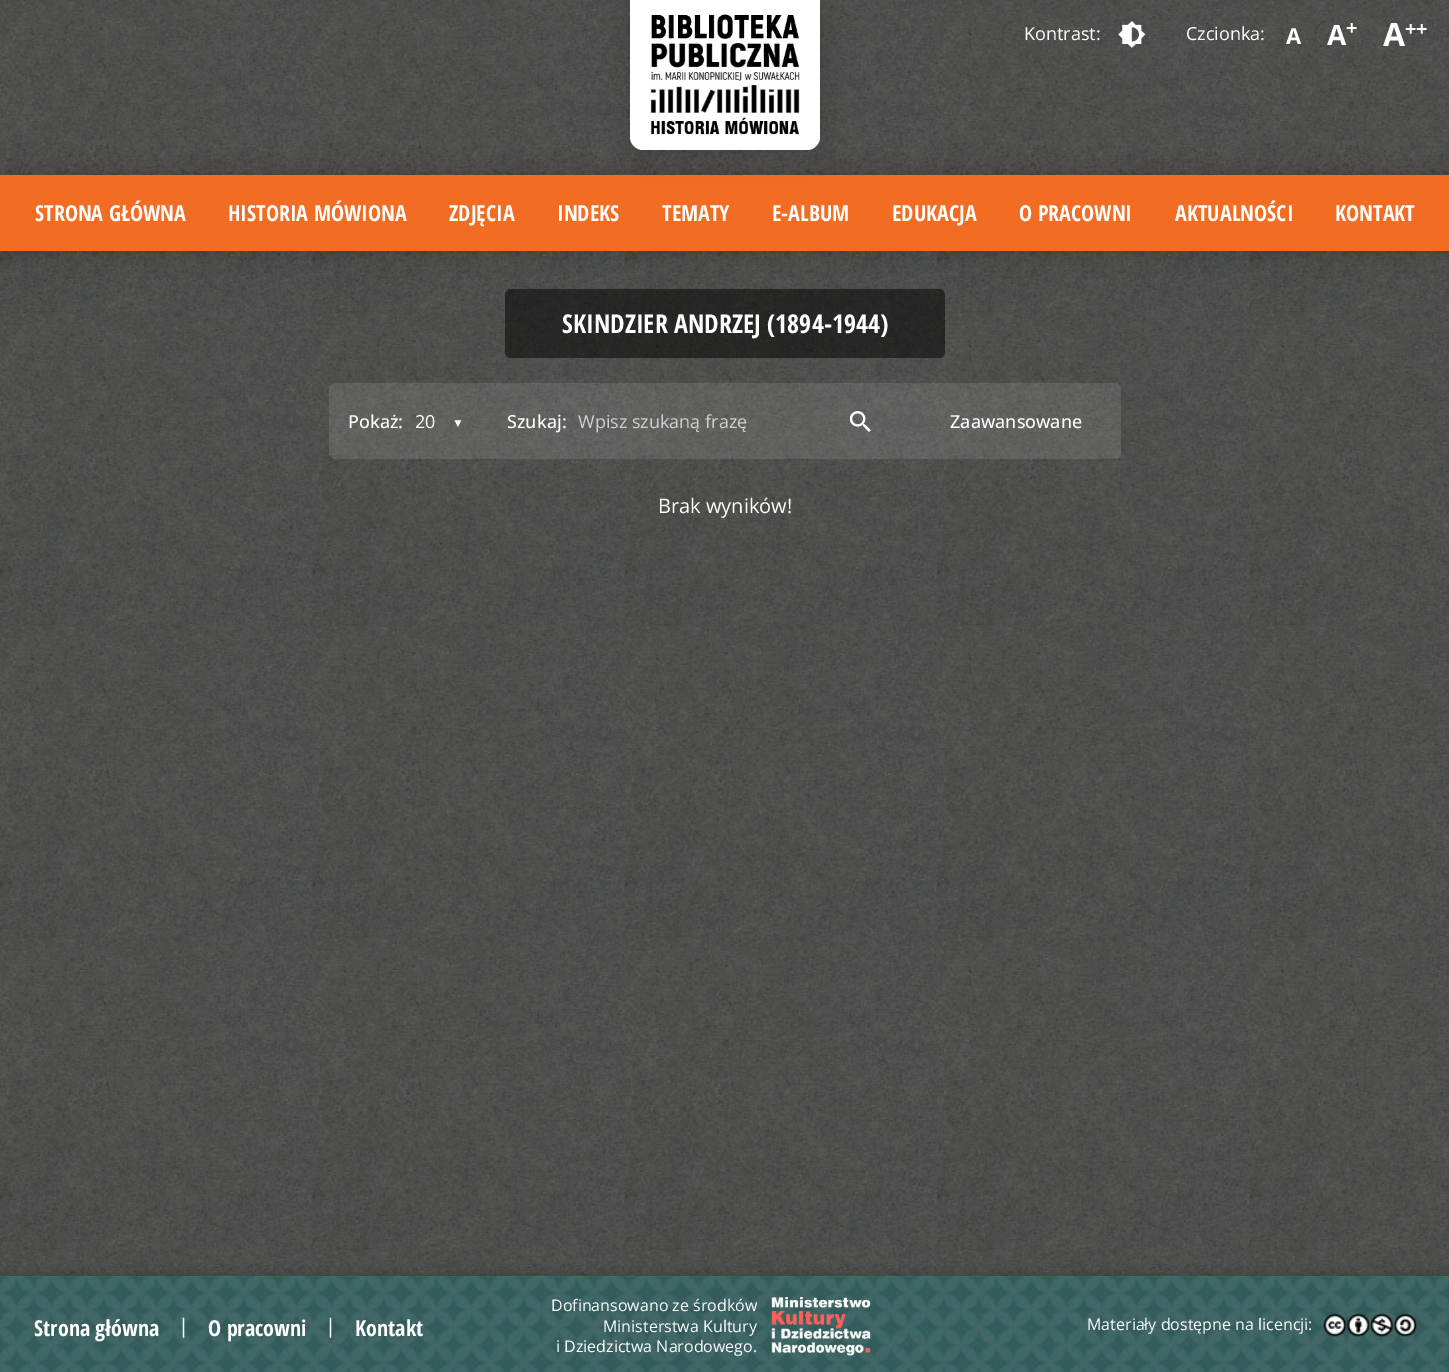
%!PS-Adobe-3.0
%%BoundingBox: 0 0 1449 1372
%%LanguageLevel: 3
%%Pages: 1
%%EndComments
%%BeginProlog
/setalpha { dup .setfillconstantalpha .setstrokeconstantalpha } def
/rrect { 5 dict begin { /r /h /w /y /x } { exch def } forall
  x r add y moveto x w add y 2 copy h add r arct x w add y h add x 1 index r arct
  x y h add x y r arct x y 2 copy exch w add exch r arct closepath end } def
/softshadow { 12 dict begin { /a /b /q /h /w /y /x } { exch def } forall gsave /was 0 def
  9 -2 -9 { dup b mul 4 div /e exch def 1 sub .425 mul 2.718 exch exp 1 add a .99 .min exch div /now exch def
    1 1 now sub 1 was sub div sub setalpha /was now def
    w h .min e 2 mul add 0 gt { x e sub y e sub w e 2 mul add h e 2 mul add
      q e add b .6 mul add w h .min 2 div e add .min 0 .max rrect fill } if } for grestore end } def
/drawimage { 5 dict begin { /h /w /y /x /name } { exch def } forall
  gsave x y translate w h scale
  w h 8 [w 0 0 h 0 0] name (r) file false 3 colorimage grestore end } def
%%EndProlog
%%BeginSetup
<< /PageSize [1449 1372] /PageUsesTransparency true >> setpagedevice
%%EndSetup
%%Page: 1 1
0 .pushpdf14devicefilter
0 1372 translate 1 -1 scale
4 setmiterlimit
1 setgray
0 0 1449 1372 rectfill
(images/1.raw) 0 0 1449 1277 drawimage
0.5 setalpha
0 setgray
505 289 440 69 6 rrect fill
1 setalpha
0 175 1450 76 0 12.5 0.2 softshadow
0.949 0.427 0.137 setrgbcolor
0 175 1449 76 rectfill
0 setgray
630 0 190 150 13 12.5 0.2 softshadow
1 setgray
newpath 630 0 moveto 820 0 lineto 820 137 lineto 820 144 814 150 807 150 curveto 643 150 lineto 636 150 630 144 630 137 curveto closepath fill
(images/2.raw) 650 13 150 122 drawimage
(images/3.raw) 1118 21 28 27 drawimage
0.1 setalpha
329 383 792 76 6 rrect fill
1 setalpha
(images/4.raw) 849 411 22 21 drawimage
0 setgray
0 1274 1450 96 0 6 0.2 softshadow
(images/5.raw) 0 1276 1449 96 drawimage
(images/6.raw) 771 1297 100 59 drawimage
(images/7.raw) 1323 1313 94 24 drawimage
/OpenSans-Regular [18 0 0 -18 0 0] selectfont
1 setgray
1024 40 moveto (Kontrast:) show
1186 40 moveto (Czcionka:) show
/OpenSans-Bold [22 0 0 -22 0 0] selectfont
1286 44 moveto (A) show
/OpenSans-Bold [28 0 0 -28 0 0] selectfont
1327 45 moveto (A) show
/OpenSans-Bold [20 0 0 -20 0 0] selectfont
1346 35 moveto (+) show
/OpenSans-Bold [32 0 0 -32 0 0] selectfont
1383 46 moveto (A) show
/OpenSans-Bold [20 0 0 -20 0 0] selectfont
1405 36 moveto (++) show
/OpenSansCondensed-Bold [22 0 0 -22 0 0] selectfont
35 221 moveto (STRONA GŁÓWNA) show
228 221 moveto (HISTORIA MÓWIONA) show
449 221 moveto (ZDJĘCIA) show
557 221 moveto (INDEKS) show
662 221 moveto (TEMATY) show
772 221 moveto (E-ALBUM) show
892 221 moveto (EDUKACJA) show
1019 221 moveto (O PRACOWNI) show
1175 221 moveto (AKTUALNOŚCI) show
1335 221 moveto (KONTAKT) show
/OpenSansCondensed-Bold [26 0 0 -26 0 0] selectfont
562 333 moveto (SKINDZIER ANDRZEJ \(1894-1944\)) show
/OpenSans-Medium [18 0 0 -18 0 0] selectfont
348 428 moveto (Pokaż:) show
/OpenSans-Regular [18 0 0 -18 0 0] selectfont
415 428 moveto (20) show
/LiberationSerif-Regular [12 0 0 -12 0 0] selectfont
452 427 moveto (▼) show
/OpenSans-Medium [18 0 0 -18 0 0] selectfont
507 428 moveto (Szukaj:) show
/OpenSans-Regular [18 0 0 -18 0 0] selectfont
0.82 setgray
578 428 moveto (Wpisz szukaną frazę) show
/OpenSans-Medium [18 0 0 -18 0 0] selectfont
1 setgray
950 428 moveto (Zaawansowane) show
/OpenSans-Regular [20 0 0 -20 0 0] selectfont
658 513 moveto (Brak wyników!) show
/OpenSansCondensed-Bold [22 0 0 -22 0 0] selectfont
34 1336 moveto (Strona główna) show
/OpenSans-Regular [20 0 0 -20 0 0] selectfont
178 1333 moveto (|) show
/OpenSansCondensed-Bold [22 0 0 -22 0 0] selectfont
208 1336 moveto (O pracowni) show
/OpenSans-Regular [20 0 0 -20 0 0] selectfont
325 1333 moveto (|) show
/OpenSansCondensed-Bold [22 0 0 -22 0 0] selectfont
355 1336 moveto (Kontakt) show
/OpenSans-Regular [16 0 0 -16 0 0] selectfont
551 1311 moveto (Dofinansowano ze środków) show
603 1332 moveto (Ministerstwa Kultury) show
556 1352 moveto (i Dziedzictwa Narodowego.) show
1087 1330 moveto (Materiały dostępne na licencji:) show
.poppdf14devicefilter showpage
%%EOF
